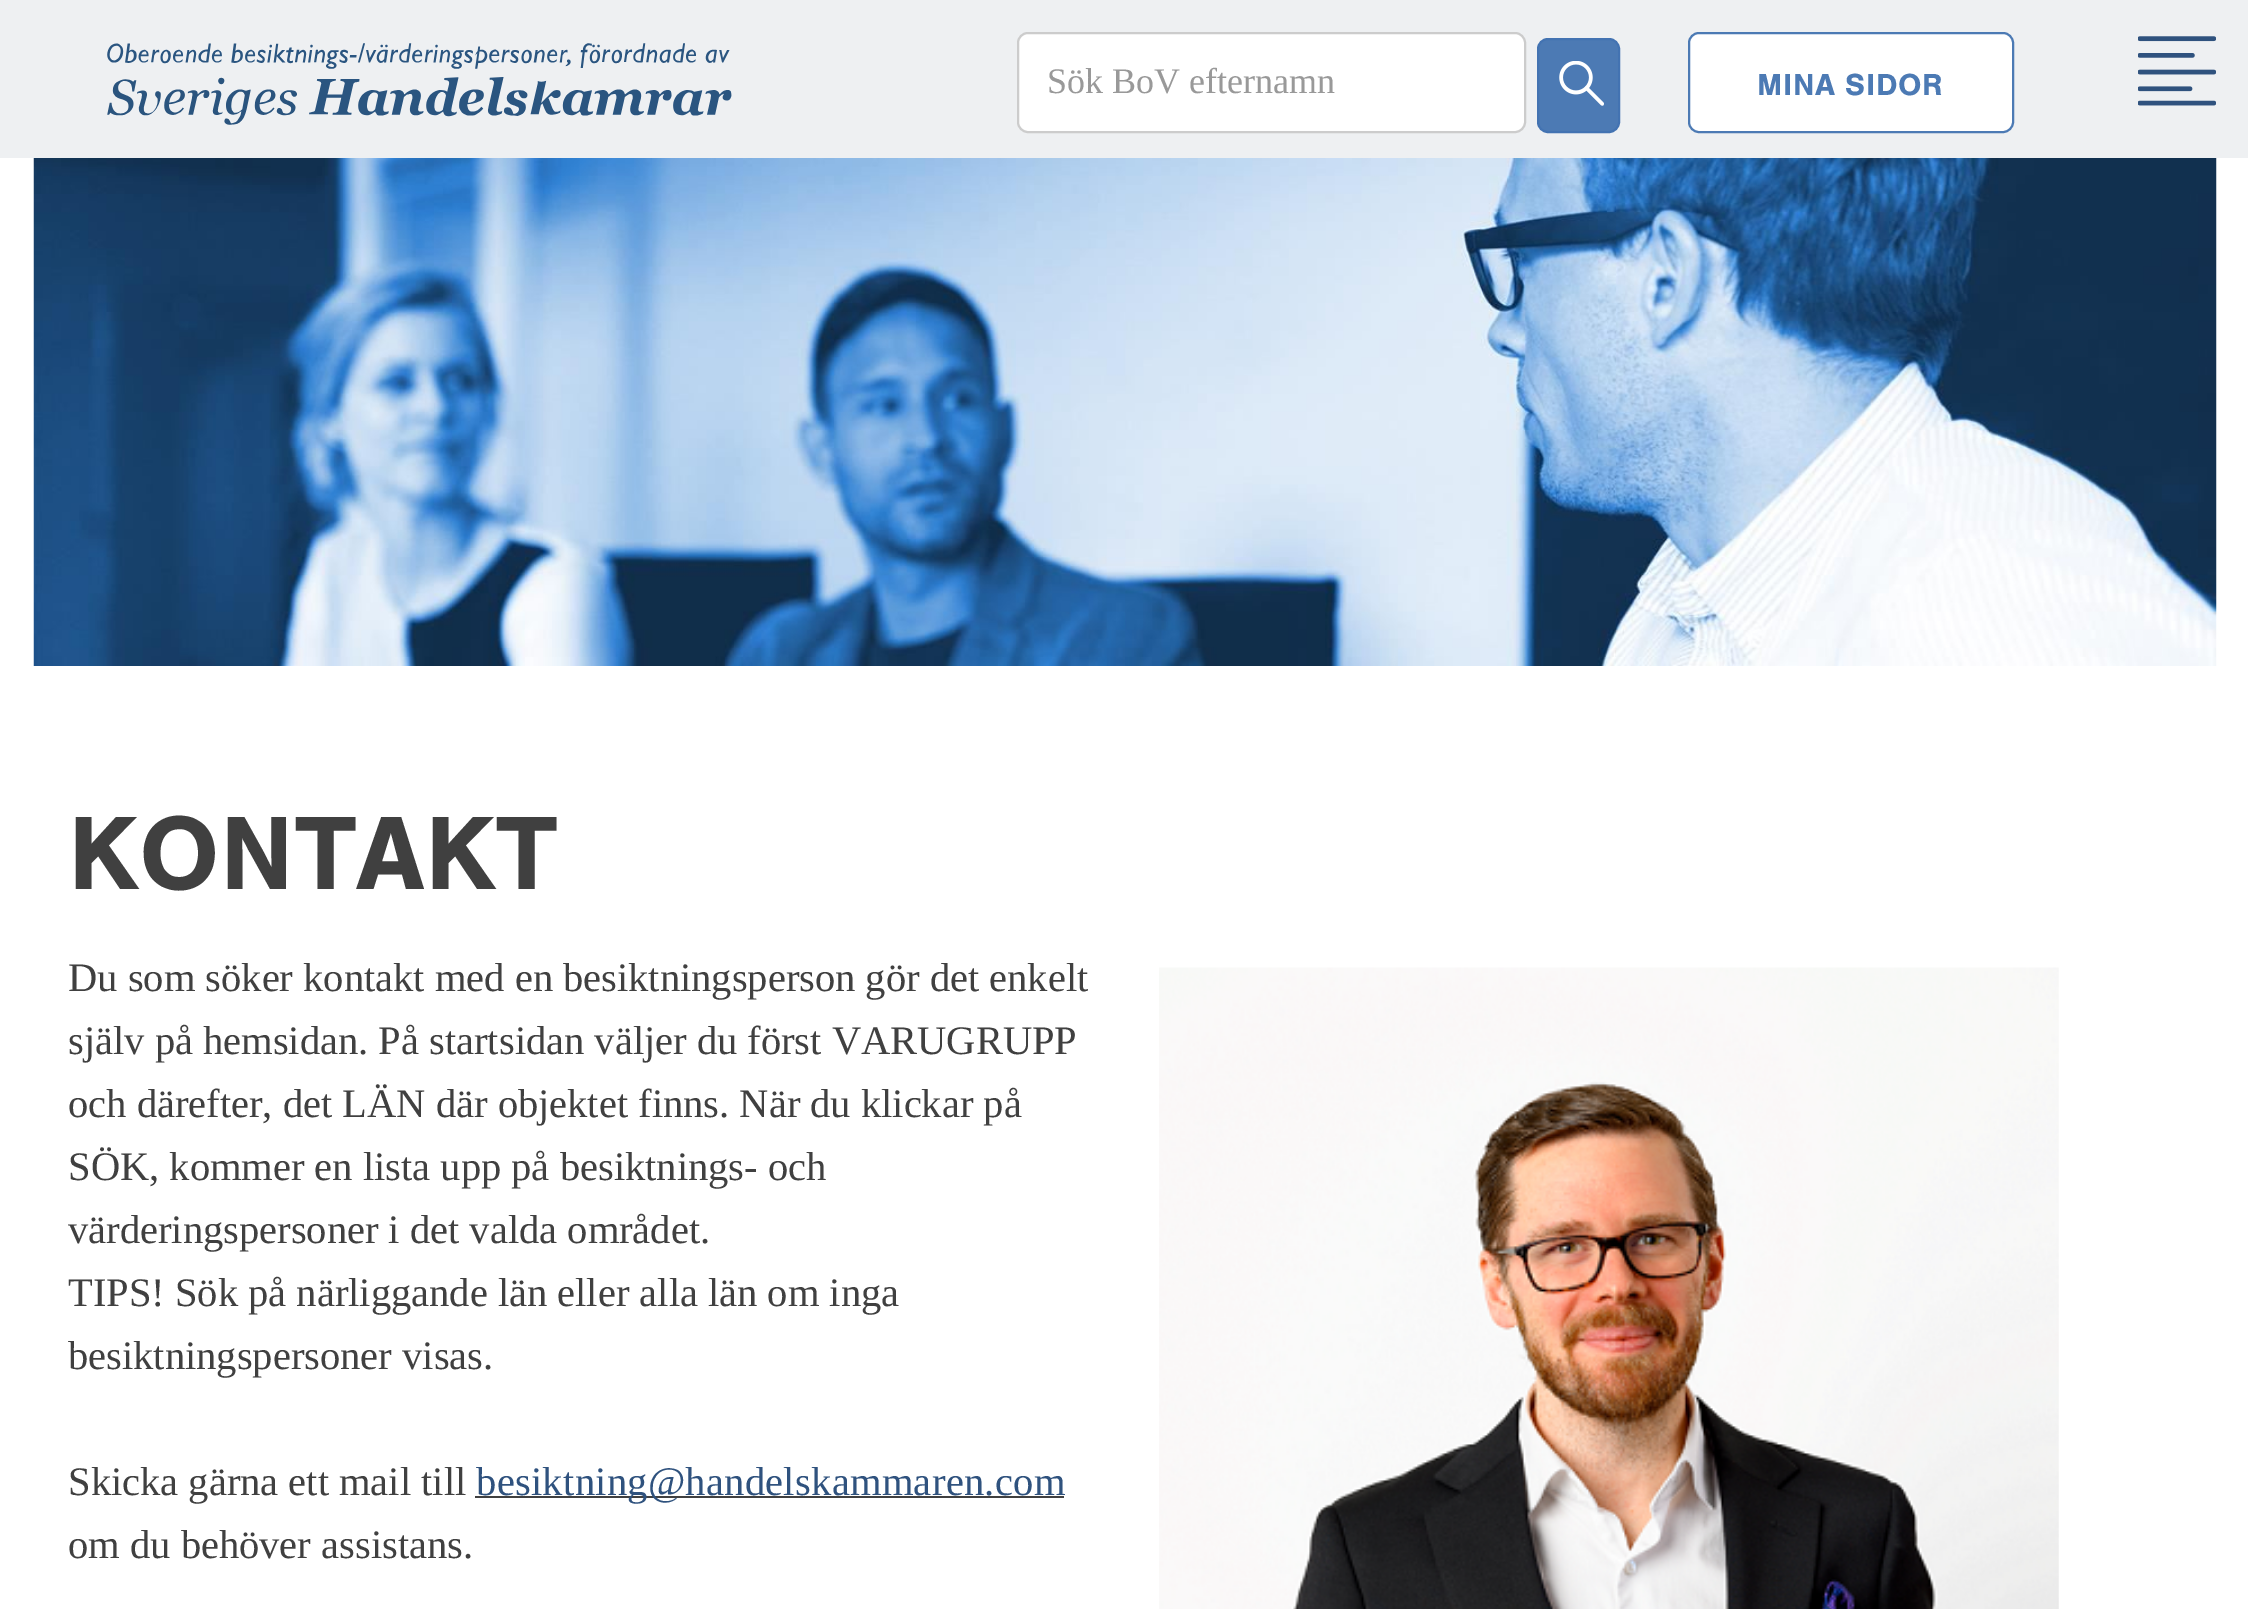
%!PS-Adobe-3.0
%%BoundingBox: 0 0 2248 1609
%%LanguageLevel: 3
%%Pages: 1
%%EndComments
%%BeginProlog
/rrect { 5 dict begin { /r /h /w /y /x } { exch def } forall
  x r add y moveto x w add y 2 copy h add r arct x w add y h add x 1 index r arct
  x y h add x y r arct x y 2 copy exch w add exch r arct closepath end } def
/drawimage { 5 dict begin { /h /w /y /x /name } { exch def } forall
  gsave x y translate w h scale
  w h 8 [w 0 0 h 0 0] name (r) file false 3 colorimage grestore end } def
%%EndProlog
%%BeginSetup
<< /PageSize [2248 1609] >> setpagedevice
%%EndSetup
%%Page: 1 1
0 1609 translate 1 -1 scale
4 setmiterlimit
1 setgray
0 0 2248 1609 rectfill
0.933 0.941 0.949 setrgbcolor
0 0 2248 158 rectfill
(images/1.raw) 107 43 625 82 drawimage
1 setgray
1018 33 507 99 10 rrect gsave fill grestore
0.8 setgray
2 setlinewidth
stroke
0.298 0.478 0.706 setrgbcolor
1538 39 81 93 10 rrect gsave fill grestore
0.263 0.451 0.698 setrgbcolor
stroke
(images/2.raw) 1559 61 45 45 drawimage
1 setgray
1689 33 324 99 10 rrect gsave fill grestore
0.298 0.478 0.706 setrgbcolor
stroke
(images/3.raw) 2138 36 78 70 drawimage
(images/4.raw) 33 158 2184 508 drawimage
0.251 setgray
475 1496 589 2 rectfill
(images/5.raw) 1159 967 900 642 drawimage
/LiberationSerif-Regular [36 0 0 -36 0 0] selectfont
0.6 setgray
1047 93 moveto (Sök BoV efternamn) show
/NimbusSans-Bold [31.5 0 0 -31.5 0 0] selectfont
0.298 0.478 0.706 setrgbcolor
1757 95 moveto 0.6 0 (MINA SIDOR) ashow
/NimbusSans-Bold [108 0 0 -108 0 0] selectfont
0.251 setgray
68 889 moveto 0.5 0 (KONTAKT) ashow
/LiberationSerif-Regular [40.5 0 0 -40.5 0 0] selectfont
68 991 moveto (Du som söker kontakt med en besiktningsperson gör det enkelt) show
68 1054 moveto (själv på hemsidan. På startsidan väljer du först VARUGRUPP) show
68 1117 moveto (och därefter, det LÄN där objektet finns. När du klickar på) show
68 1180 moveto (SÖK, kommer en lista upp på besiktnings- och) show
68 1243 moveto (värderingspersoner i det valda området.) show
68 1306 moveto (TIPS! Sök på närliggande län eller alla län om inga) show
68 1369 moveto (besiktningspersoner visas.) show
68 1495 moveto (Skicka gärna ett mail till) show
0.184 0.322 0.494 setrgbcolor
476 1495 moveto 0.3 0 (besiktning@handelskammaren.com) ashow
0.251 setgray
68 1558 moveto (om du behöver assistans.) show
showpage
%%EOF
